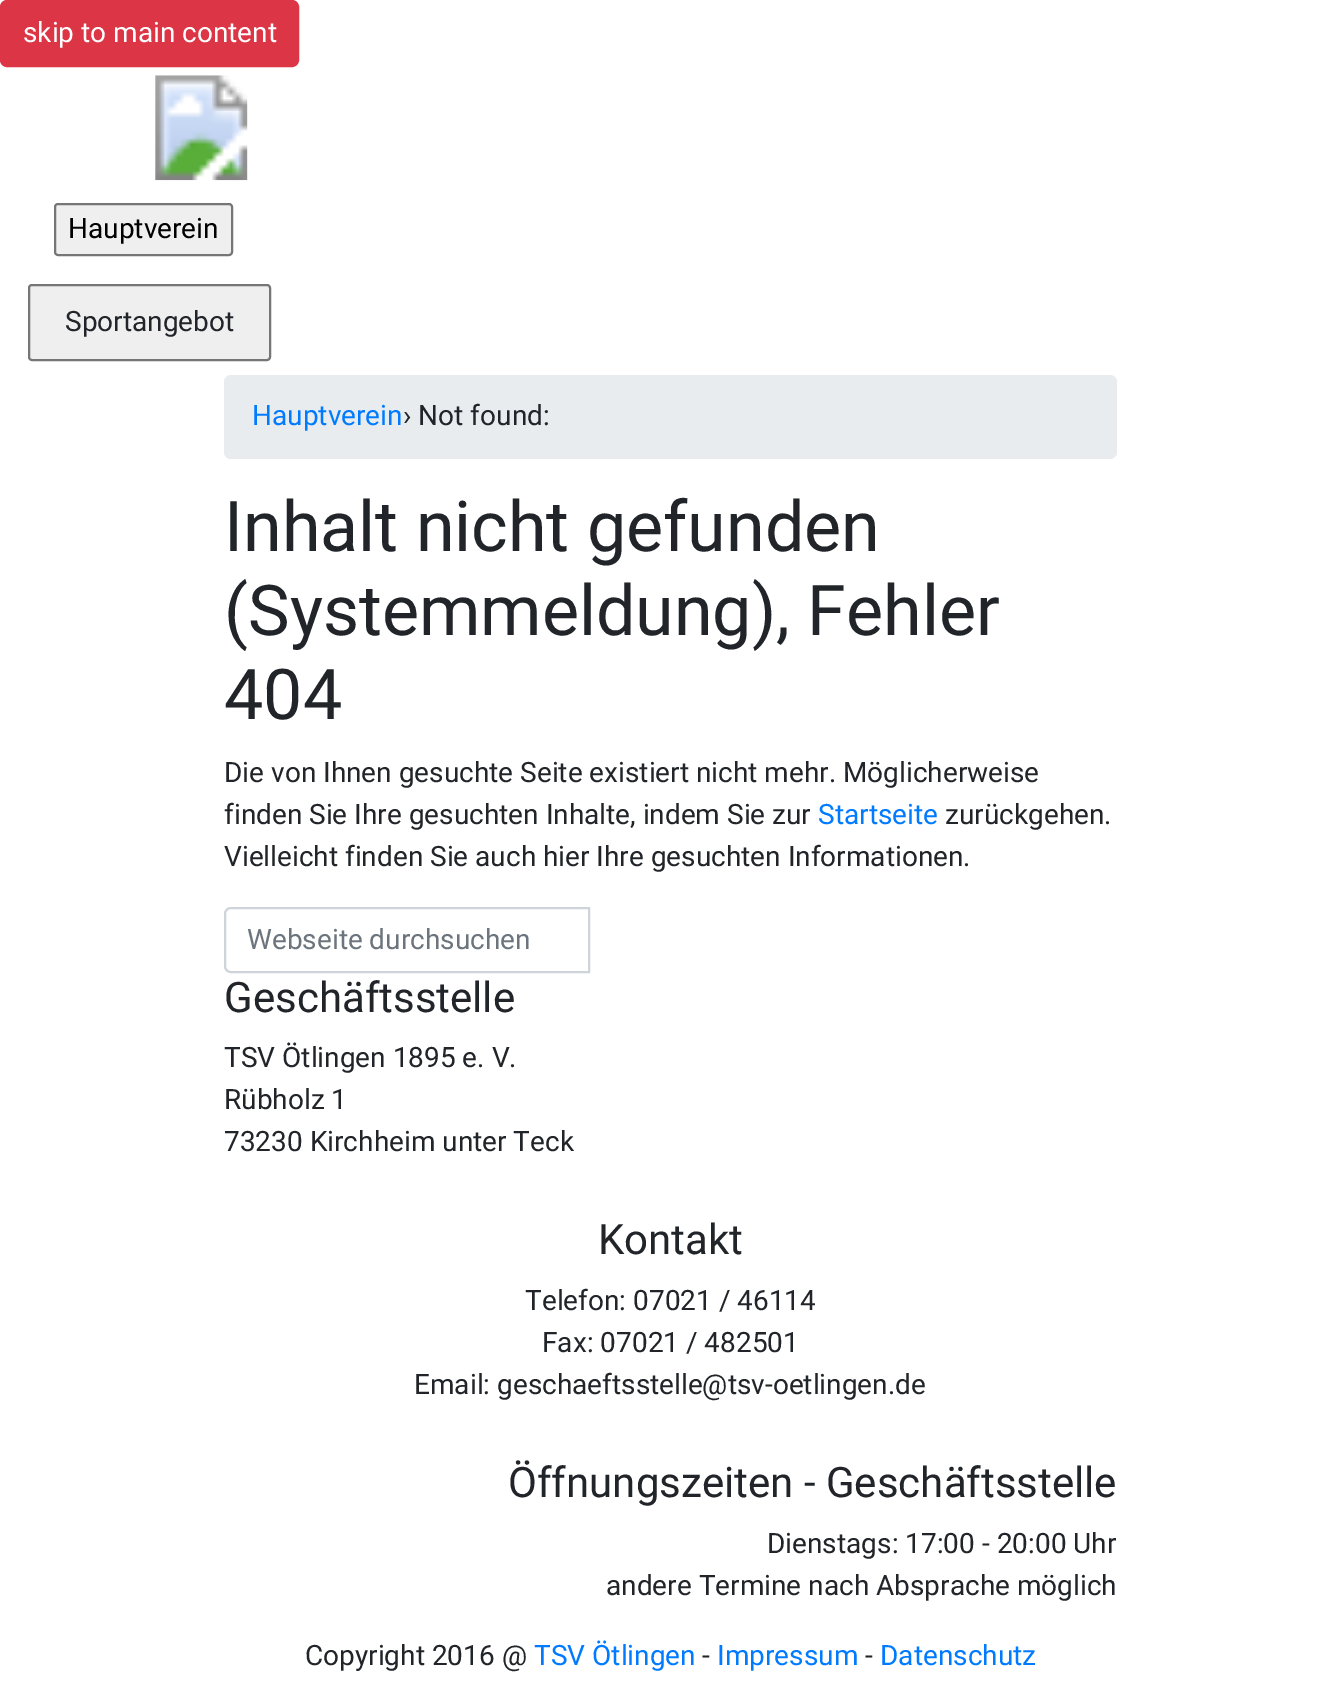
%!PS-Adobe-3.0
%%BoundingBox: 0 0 1339 1708
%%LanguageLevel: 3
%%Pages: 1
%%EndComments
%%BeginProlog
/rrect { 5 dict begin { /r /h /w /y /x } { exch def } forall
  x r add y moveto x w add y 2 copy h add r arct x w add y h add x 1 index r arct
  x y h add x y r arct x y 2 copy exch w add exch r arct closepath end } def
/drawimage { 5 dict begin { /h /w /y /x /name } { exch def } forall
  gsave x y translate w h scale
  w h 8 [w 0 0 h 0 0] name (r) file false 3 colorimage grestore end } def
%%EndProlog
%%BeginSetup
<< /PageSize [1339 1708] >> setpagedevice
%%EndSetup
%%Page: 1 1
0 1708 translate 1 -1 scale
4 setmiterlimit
1 setgray
0 0 1339 1708 rectfill
0.863 0.208 0.271 setrgbcolor
1 1 297 65 6 rrect gsave fill grestore
2 setlinewidth
stroke
(images/1.raw) 155 75 93 106 drawimage
0.937 setgray
55 204 177 51 3 rrect gsave fill grestore
0.463 setgray
stroke
0.937 setgray
29 285 241 75 3 rrect gsave fill grestore
0.463 setgray
stroke
0.914 0.925 0.937 setrgbcolor
224 375 893 84 7 rrect fill
0.808 0.831 0.855 setrgbcolor
newpath 231 908 moveto 589 908 lineto 589 972 lineto 231 972 lineto 227.5 972 225 969.5 225 966 curveto 225 914 lineto 225 910.5 227.5 908 231 908 curveto closepath stroke
/Roboto-Regular [28 0 0 -28 0 0] selectfont
1 setgray
23 42 moveto (skip to main content) show
0 setgray
68 238 moveto (Hauptverein) show
0.129 0.145 0.161 setrgbcolor
65 331 moveto (Sportangebot) show
0 0.482 1 setrgbcolor
252 425 moveto (Hauptverein) show
0.129 0.145 0.161 setrgbcolor
403 425 moveto (› Not found:) show
/Roboto-Regular [70 0 0 -70 0 0] selectfont
224 551 moveto (Inhalt nicht gefunden) show
224 635 moveto (\(Systemmeldung\), Fehler) show
224 719 moveto (404) show
/Roboto-Regular [28 0 0 -28 0 0] selectfont
224 782 moveto (Die von Ihnen gesuchte Seite existiert nicht mehr. Möglicherweise) show
224 824 moveto (finden Sie Ihre gesuchten Inhalte, indem Sie zur) show
0 0.482 1 setrgbcolor
818 824 moveto (Startseite) show
0.129 0.145 0.161 setrgbcolor
945 824 moveto (zurückgehen.) show
224 866 moveto (Vielleicht finden Sie auch hier Ihre gesuchten Informationen.) show
0.424 0.459 0.49 setrgbcolor
247 949 moveto (Webseite durchsuchen) show
/Roboto-Regular [42 0 0 -42 0 0] selectfont
0.129 0.145 0.161 setrgbcolor
224 1012 moveto (Geschäftsstelle) show
/Roboto-Regular [28 0 0 -28 0 0] selectfont
224 1067 moveto (TSV Ötlingen 1895 e. V.) show
224 1109 moveto (Rübholz 1) show
224 1151 moveto (73230 Kirchheim unter Teck) show
/Roboto-Regular [42 0 0 -42 0 0] selectfont
598 1254 moveto (Kontakt) show
/Roboto-Regular [28 0 0 -28 0 0] selectfont
525 1310 moveto (Telefon: 07021 / 46114) show
542 1352 moveto (Fax: 07021 / 482501) show
414 1394 moveto (Email: geschaeftsstelle@tsv-oetlingen.de) show
/Roboto-Regular [42 0 0 -42 0 0] selectfont
508 1497 moveto (Öffnungszeiten - Geschäftsstelle) show
/Roboto-Regular [28 0 0 -28 0 0] selectfont
767 1553 moveto (Dienstags: 17:00 - 20:00 Uhr) show
606 1595 moveto (andere Termine nach Absprache möglich) show
305 1665 moveto (Copyright 2016 @) show
0 0.482 1 setrgbcolor
534 1665 moveto (TSV Ötlingen) show
0.129 0.145 0.161 setrgbcolor
702 1665 moveto (-) show
0 0.482 1 setrgbcolor
717 1665 moveto (Impressum) show
0.129 0.145 0.161 setrgbcolor
865 1665 moveto (-) show
0 0.482 1 setrgbcolor
880 1665 moveto (Datenschutz) show
showpage
%%EOF
